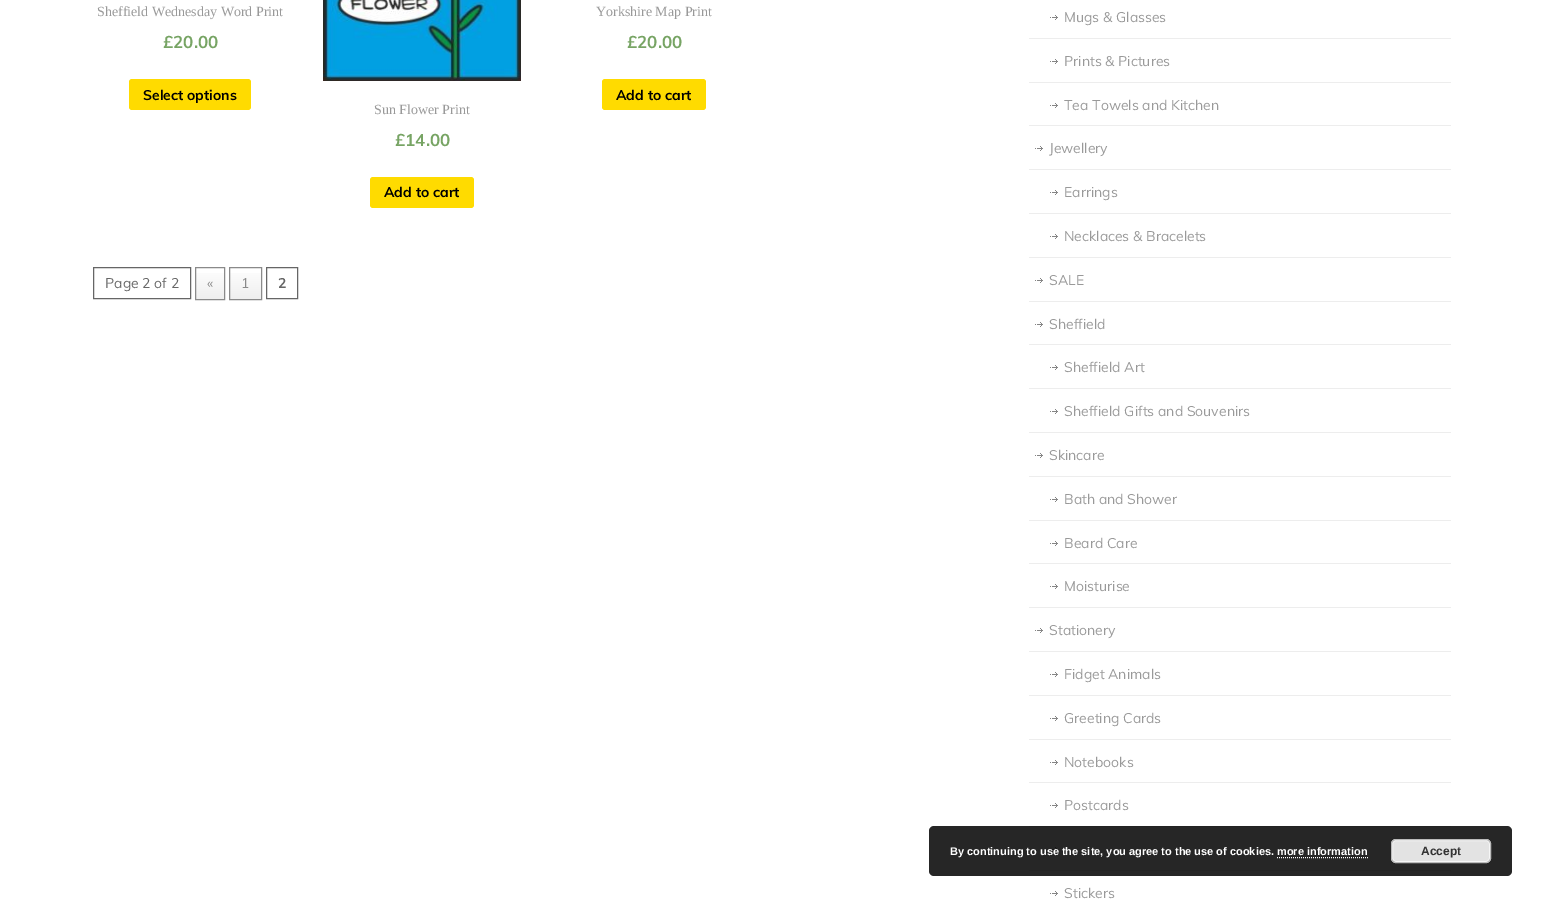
%!PS-Adobe-3.0
%%BoundingBox: 0 0 1542 906
%%LanguageLevel: 3
%%Pages: 1
%%EndComments
%%BeginProlog
/setalpha { dup .setfillconstantalpha .setstrokeconstantalpha } def
/rrect { 5 dict begin { /r /h /w /y /x } { exch def } forall
  x r add y moveto x w add y 2 copy h add r arct x w add y h add x 1 index r arct
  x y h add x y r arct x y 2 copy exch w add exch r arct closepath end } def
/drawimage { 5 dict begin { /h /w /y /x /name } { exch def } forall
  gsave x y translate w h scale
  w h 8 [w 0 0 h 0 0] name (r) file false 3 colorimage grestore end } def
%%EndProlog
%%BeginSetup
<< /PageSize [1542 906] /PageUsesTransparency true >> setpagedevice
%%EndSetup
%%Page: 1 1
0 .pushpdf14devicefilter
0 906 translate 1 -1 scale
4 setmiterlimit
1 setgray
0 0 1542 906 rectfill
1 0.859 0 setrgbcolor
129 79 122 31 3 rrect fill
602 79 104 31 3 rrect fill
(images/1.raw) 323 0 198 81 drawimage
370 177 104 31 3 rrect fill
0.4 setgray
93.5 267.5 97 31 rectstroke
gsave newpath 196 273 moveto 224 273 lineto 224 299 lineto 196 299 lineto closepath clip newpath
<< /ShadingType 2 /ColorSpace /DeviceRGB /Coords [210 268 210 299] /Extend [true true] /Function << /FunctionType 2 /Domain [0 1] /C0 [1 1 1] /C1 [0.937 0.937 0.937] /N 1 >> >> shfill grestore
0.541 setgray
195.5 267.5 29 32 rectstroke
gsave newpath 230 273 moveto 261 273 lineto 261 299 lineto 230 299 lineto closepath clip newpath
<< /ShadingType 2 /ColorSpace /DeviceRGB /Coords [246 268 246 299] /Extend [true true] /Function << /FunctionType 2 /Domain [0 1] /C0 [1 1 1] /C1 [0.937 0.937 0.937] /N 1 >> >> shfill grestore
229.5 267.5 32 32 rectstroke
0.4 setgray
266.5 267.5 31 31 rectstroke
0.929 setgray
1029 38 422 1 rectfill
(images/2.raw) 1050 15 8 5 drawimage
1029 82 422 1 rectfill
(images/2.raw) 1050 59 8 5 drawimage
1029 125 422 1 rectfill
(images/2.raw) 1050 103 8 5 drawimage
1029 169 422 1 rectfill
(images/2.raw) 1035 146 8 5 drawimage
1029 213 422 1 rectfill
(images/2.raw) 1050 190 8 5 drawimage
1029 257 422 1 rectfill
(images/2.raw) 1050 234 8 5 drawimage
1029 301 422 1 rectfill
(images/2.raw) 1035 278 8 5 drawimage
1029 344 422 1 rectfill
(images/2.raw) 1035 322 8 5 drawimage
1029 388 422 1 rectfill
(images/2.raw) 1050 365 8 5 drawimage
1029 432 422 1 rectfill
(images/2.raw) 1050 409 8 5 drawimage
1029 476 422 1 rectfill
(images/2.raw) 1035 453 8 5 drawimage
1029 520 422 1 rectfill
(images/2.raw) 1050 497 8 5 drawimage
1029 563 422 1 rectfill
(images/2.raw) 1050 541 8 5 drawimage
1029 607 422 1 rectfill
(images/2.raw) 1050 584 8 5 drawimage
1029 651 422 1 rectfill
(images/2.raw) 1035 628 8 5 drawimage
1029 695 422 1 rectfill
(images/2.raw) 1050 672 8 5 drawimage
1029 739 422 1 rectfill
(images/2.raw) 1050 716 8 5 drawimage
1029 782 422 1 rectfill
(images/2.raw) 1050 760 8 5 drawimage
1029 826 422 1 rectfill
(images/2.raw) 1050 803 8 5 drawimage
1029 870 422 1 rectfill
(images/2.raw) 1050 847 8 5 drawimage
(images/2.raw) 1050 891 8 5 drawimage
0.85 setalpha
0 setgray
929 826 583 50 5 rrect fill
1 setalpha
0.89 setgray
1391 839 100 24 5 rrect fill
0.965 setgray
1392.5 840.5 97 21 3.5 rrect stroke
0.733 setgray
1391.5 839.5 99 23 4.5 rrect stroke
1 setgray
[1 1] 0 setdash
newpath 1277 857.5 moveto 1368 857.5 lineto stroke
/LiberationSerif-Regular [14 0 0 -14 0 0] selectfont
0.6 setgray
97 16 moveto (Sheffield Wednesday Word Print) show
/Muli-Bold [17 0 0 -17 0 0] selectfont
0.467 0.643 0.392 setrgbcolor
163 48 moveto (£20.00) show
/Muli-Bold [14 0 0 -14 0 0] selectfont
0 setgray
143 100 moveto (Select options) show
/LiberationSerif-Regular [14 0 0 -14 0 0] selectfont
0.6 setgray
596 16 moveto (Yorkshire Map Print) show
/Muli-Bold [17 0 0 -17 0 0] selectfont
0.467 0.643 0.392 setrgbcolor
627 48 moveto (£20.00) show
/Muli-Bold [14 0 0 -14 0 0] selectfont
0 setgray
616 100 moveto (Add to cart) show
/LiberationSerif-Regular [14 0 0 -14 0 0] selectfont
0.6 setgray
374 114 moveto (Sun Flower Print) show
/Muli-Bold [17 0 0 -17 0 0] selectfont
0.467 0.643 0.392 setrgbcolor
395 146 moveto (£14.00) show
/Muli-Bold [14 0 0 -14 0 0] selectfont
0 setgray
384 197 moveto (Add to cart) show
/Muli-Regular [14 0 0 -14 0 0] selectfont
0.4 setgray
105 288 moveto (Page 2 of 2) show
0.541 setgray
207 288 moveto («) show
241 288 moveto (1) show
/Muli-Bold [14 0 0 -14 0 0] selectfont
0.4 setgray
278 288 moveto (2) show
/Muli-Regular [14 0 0 -14 0 0] selectfont
0.6 setgray
1064 22 moveto (Mugs & Glasses) show
1064 66 moveto (Prints & Pictures) show
1064 110 moveto (Tea Towels and Kitchen) show
1049 153 moveto (Jewellery) show
1064 197 moveto (Earrings) show
1064 241 moveto (Necklaces & Bracelets) show
1049 285 moveto (SALE) show
1049 329 moveto (Sheffield) show
1064 372 moveto (Sheffield Art) show
1064 416 moveto (Sheffield Gifts and Souvenirs) show
1049 460 moveto (Skincare) show
1064 504 moveto (Bath and Shower) show
1064 548 moveto (Beard Care) show
1064 591 moveto (Moisturise) show
1049 635 moveto (Stationery) show
1064 679 moveto (Fidget Animals) show
1064 723 moveto (Greeting Cards) show
1064 767 moveto (Notebooks) show
1064 810 moveto (Postcards) show
1064 898 moveto (Stickers) show
/LiberationSans-Bold [11 0 0 -11 0 0] selectfont
1 setgray
950 855 moveto (By continuing to use the site, you agree to the use of cookies. more information) show
/LiberationSans-Bold [12 0 0 -12 0 0] selectfont
0.2 setgray
1421 855 moveto (Accept) show
.poppdf14devicefilter showpage
%%EOF
